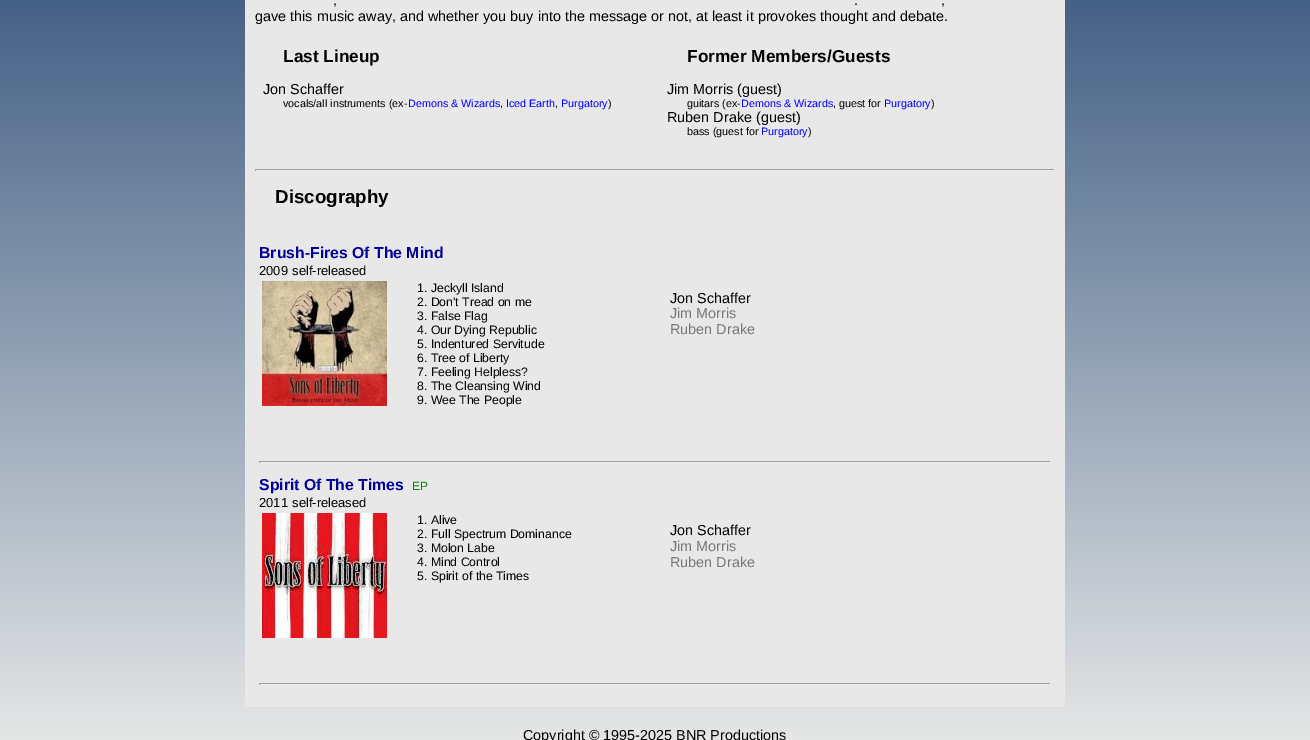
%!PS-Adobe-3.0
%%BoundingBox: 0 0 1310 740
%%LanguageLevel: 3
%%Pages: 1
%%EndComments
%%BeginProlog
/drawimage { 5 dict begin { /h /w /y /x /name } { exch def } forall
  gsave x y translate w h scale
  w h 8 [w 0 0 h 0 0] name (r) file false 3 colorimage grestore end } def
%%EndProlog
%%BeginSetup
<< /PageSize [1310 740] >> setpagedevice
%%EndSetup
%%Page: 1 1
0 740 translate 1 -1 scale
4 setmiterlimit
1 setgray
0 0 1310 740 rectfill
gsave newpath 0 0 moveto 1310 0 lineto 1310 740 lineto 0 740 lineto closepath clip newpath
<< /ShadingType 2 /ColorSpace /DeviceRGB /Coords [655 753 655 -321] /Extend [true true] /Function << /FunctionType 2 /Domain [0 1] /C0 [0.91 0.91 0.91] /C1 [0 0.157 0.361] /N 1 >> >> shfill grestore
0.91 setgray
245 0 820 707 rectfill
0.624 setgray
255 169 800 1 rectfill
0.933 setgray
1054 169 1 2 rectfill
255 170 800 1 rectfill
0.624 setgray
255 169 1 2 rectfill
(images/1.raw) 262 281 125 125 drawimage
259 461 792 1 rectfill
0.933 setgray
1050 461 1 2 rectfill
259 462 792 1 rectfill
0.624 setgray
259 461 1 2 rectfill
(images/2.raw) 262 513 125 125 drawimage
259 683 792 1 rectfill
0.933 setgray
1050 683 1 2 rectfill
259 684 792 1 rectfill
0.624 setgray
259 683 1 2 rectfill
/LiberationSans-Regular [14.4 0 0 -14.4 0 0] selectfont
0 setgray
333 5 moveto (,) show
854 5 moveto (.) show
941 5 moveto (,) show
255 21 moveto (gave this music away, and whether you buy into the message or not, at least it provokes thought and debate.) show
/LiberationSans-Bold [17.25 0 0 -17.25 0 0] selectfont
283 62 moveto (Last Lineup) show
/LiberationSans-Regular [14.4 0 0 -14.4 0 0] selectfont
263 94 moveto (Jon Schaffer) show
/LiberationSans-Regular [10.75 0 0 -10.75 0 0] selectfont
283 107 moveto (vocals/all instruments \(ex-) show
0 0 1 setrgbcolor
408 107 moveto (Demons & Wizards) show
0 setgray
500 107 moveto (,) show
0 0 1 setrgbcolor
506 107 moveto (Iced Earth) show
0 setgray
555 107 moveto (,) show
0 0 1 setrgbcolor
561 107 moveto (Purgatory) show
0 setgray
608 107 moveto (\)) show
/LiberationSans-Bold [17.25 0 0 -17.25 0 0] selectfont
687 62 moveto (Former Members/Guests) show
/LiberationSans-Regular [14.4 0 0 -14.4 0 0] selectfont
667 94 moveto (Jim Morris \(guest\)) show
/LiberationSans-Regular [10.75 0 0 -10.75 0 0] selectfont
687 107 moveto (guitars \(ex-) show
0 0 1 setrgbcolor
741 107 moveto (Demons & Wizards) show
0 setgray
833 107 moveto (, guest for) show
0 0 1 setrgbcolor
884 107 moveto (Purgatory) show
0 setgray
931 107 moveto (\)) show
/LiberationSans-Regular [14.4 0 0 -14.4 0 0] selectfont
667 122 moveto (Ruben Drake \(guest\)) show
/LiberationSans-Regular [10.75 0 0 -10.75 0 0] selectfont
687 135 moveto (bass \(guest for) show
0 0 1 setrgbcolor
761 135 moveto (Purgatory) show
0 setgray
808 135 moveto (\)) show
/LiberationSans-Bold [18.75 0 0 -18.75 0 0] selectfont
275 203 moveto (Discography) show
/LiberationSans-Bold [15.8 0 0 -15.8 0 0] selectfont
0 0 0.6 setrgbcolor
259 258 moveto (Brush-Fires Of The Mind) show
/LiberationSans-Regular [13 0 0 -13 0 0] selectfont
0 setgray
259 275 moveto (2009) show
292 275 moveto (self-released) show
/LiberationSans-Regular [12.25 0 0 -12.25 0 0] selectfont
417 292 moveto (1. Jeckyll Island) show
417 306 moveto (2. Don't Tread on me) show
417 320 moveto (3. False Flag) show
417 334 moveto (4. Our Dying Republic) show
417 348 moveto (5. Indentured Servitude) show
417 362 moveto (6. Tree of Liberty) show
417 376 moveto (7. Feeling Helpless?) show
417 390 moveto (8. The Cleansing Wind) show
417 404 moveto (9. Wee The People) show
/LiberationSans-Regular [14.4 0 0 -14.4 0 0] selectfont
670 303 moveto (Jon Schaffer) show
0.467 setgray
670 318 moveto (Jim Morris) show
670 334 moveto (Ruben Drake) show
/LiberationSans-Bold [15.8 0 0 -15.8 0 0] selectfont
0 0 0.6 setrgbcolor
259 490 moveto (Spirit Of The Times) show
/LiberationSans-Regular [12 0 0 -12 0 0] selectfont
0 0.533 0 setrgbcolor
412 490 moveto (EP) show
/LiberationSans-Regular [13 0 0 -13 0 0] selectfont
0 setgray
259 507 moveto (2011) show
292 507 moveto (self-released) show
/LiberationSans-Regular [12.25 0 0 -12.25 0 0] selectfont
417 524 moveto (1. Alive) show
417 538 moveto (2. Full Spectrum Dominance) show
417 552 moveto (3. Molon Labe) show
417 566 moveto (4. Mind Control) show
417 580 moveto (5. Spirit of the Times) show
/LiberationSans-Regular [14.4 0 0 -14.4 0 0] selectfont
670 535 moveto (Jon Schaffer) show
0.467 setgray
670 551 moveto (Jim Morris) show
670 567 moveto (Ruben Drake) show
0 setgray
523 740 moveto (Copyright © 1995-2025 BNR Productions) show
showpage
%%EOF
